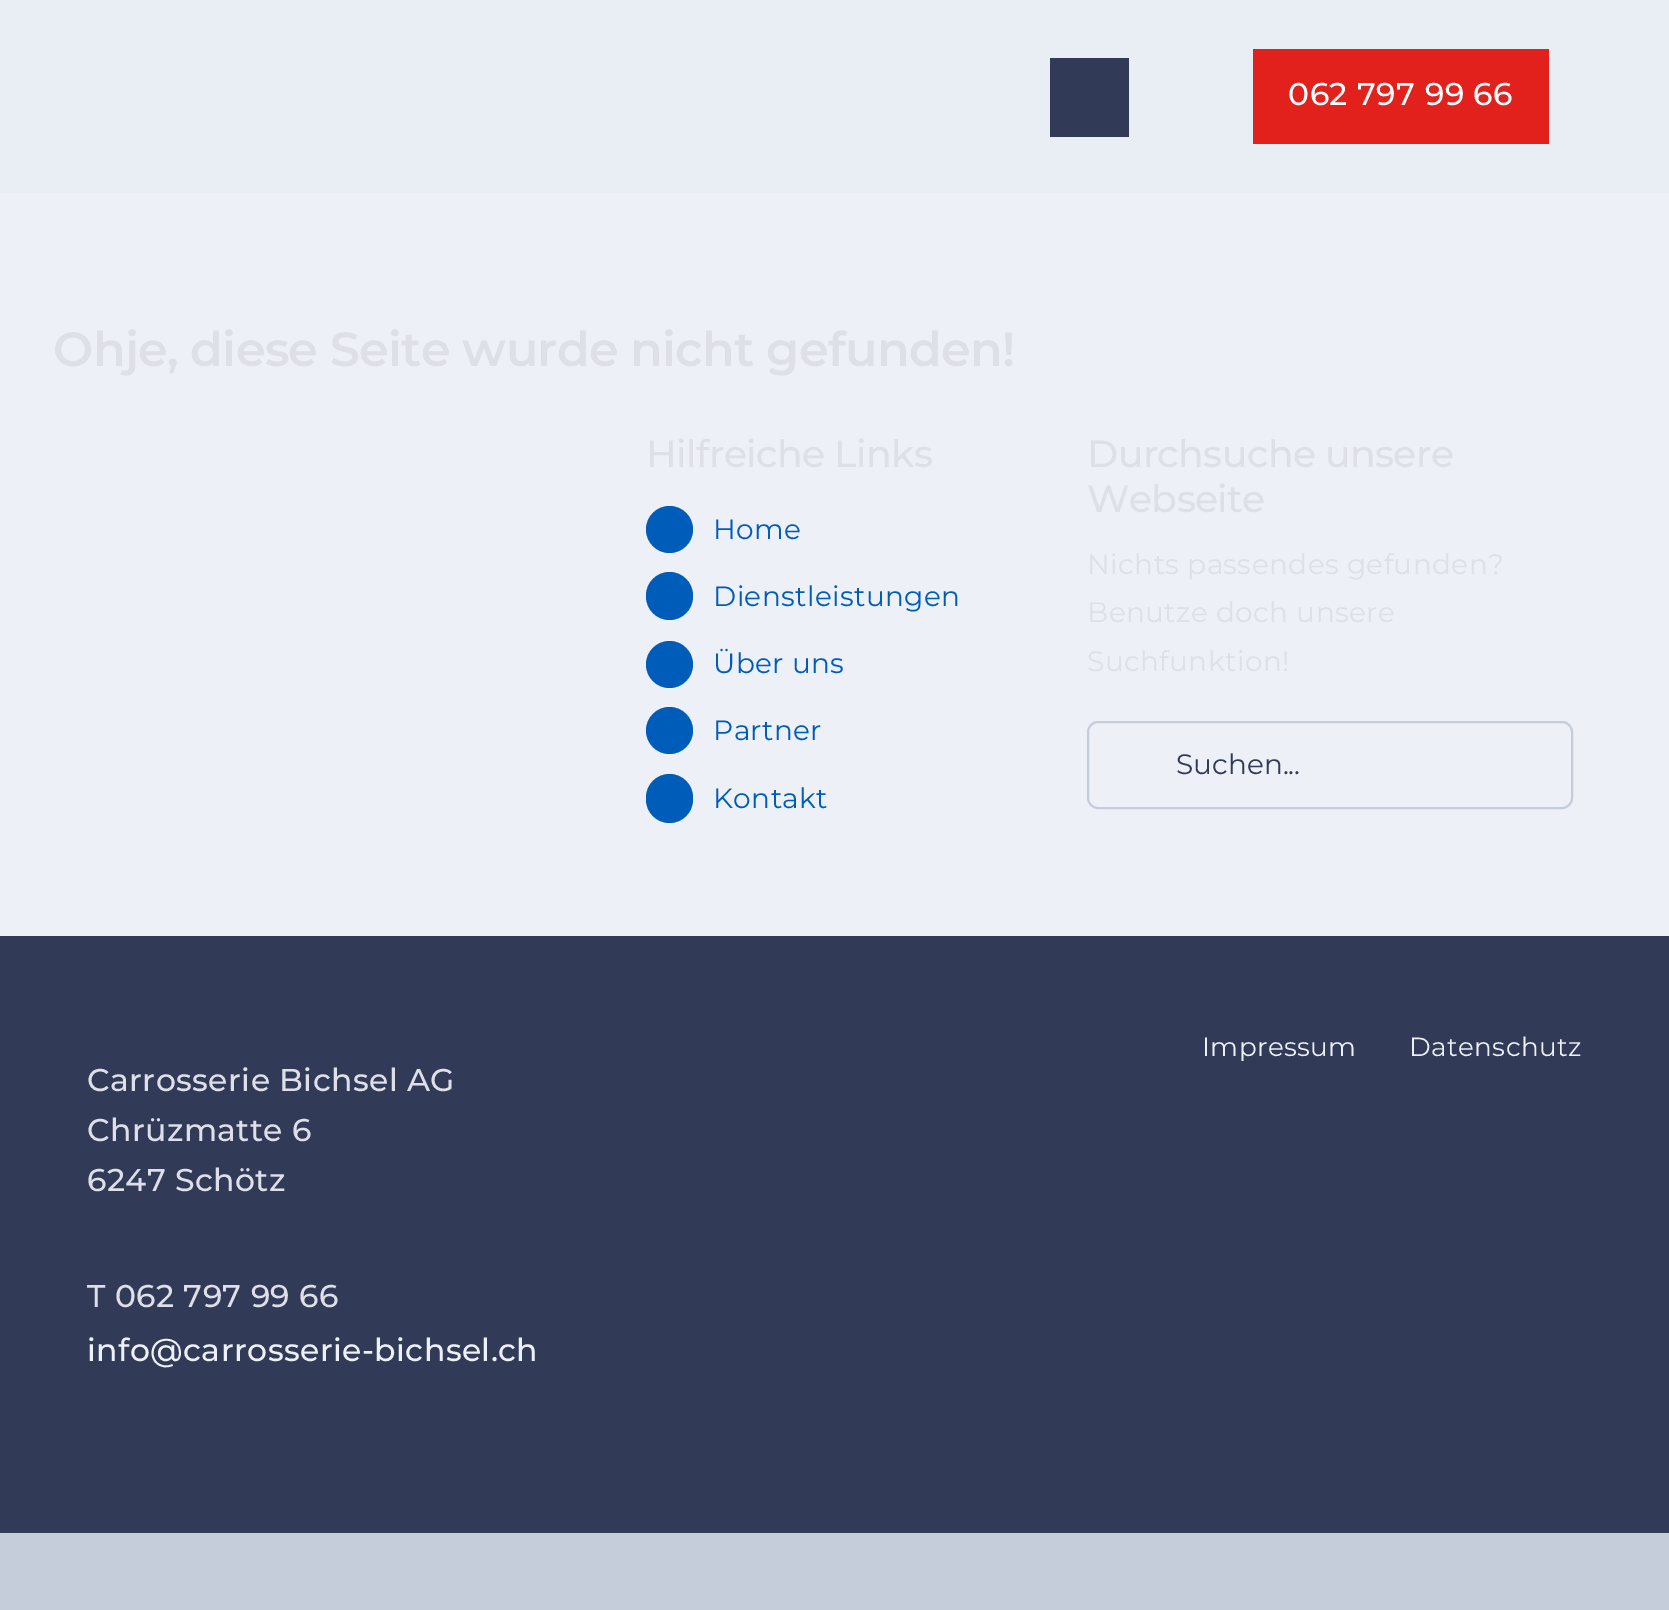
%!PS-Adobe-3.0
%%BoundingBox: 0 0 1669 1610
%%LanguageLevel: 3
%%Pages: 1
%%EndComments
%%BeginProlog
/rrect { 5 dict begin { /r /h /w /y /x } { exch def } forall
  x r add y moveto x w add y 2 copy h add r arct x w add y h add x 1 index r arct
  x y h add x y r arct x y 2 copy exch w add exch r arct closepath end } def
%%EndProlog
%%BeginSetup
<< /PageSize [1669 1610] >> setpagedevice
%%EndSetup
%%Page: 1 1
0 1610 translate 1 -1 scale
4 setmiterlimit
0.773 0.804 0.859 setrgbcolor
0 0 1669 1610 rectfill
0.929 0.945 0.969 setrgbcolor
0 193 1669 743 rectfill
0.914 0.929 0.957 setrgbcolor
0 0 1669 193 rectfill
0.192 0.227 0.337 setrgbcolor
1050 58 79 79 rectfill
0.886 0.129 0.11 setrgbcolor
1253 49 296 95 rectfill
0 0.361 0.725 setrgbcolor
newpath 669.5 529.5 23.5 0 360 arc closepath fill
646 572 47 48 23.5 rrect fill
newpath 669.5 664.5 23.5 0 360 arc closepath fill
newpath 669.5 730.5 23.5 0 360 arc closepath fill
646 774 47 49 23.5 rrect fill
0.773 0.804 0.859 setrgbcolor
2 setlinewidth
1088 722 484 86 10 rrect stroke
0.192 0.227 0.337 setrgbcolor
0 936 1669 597 rectfill
/Montserrat-Medium [31.5 0 0 -31.5 0 0] selectfont
1 setgray
1288 105 moveto 0.5 0 (062 797 99 66) ashow
/Montserrat-SemiBold [47.75 0 0 -47.75 0 0] selectfont
0.871 0.875 0.91 setrgbcolor
53 366 moveto -0.7 0 (Ohje, diese Seite wurde nicht gefunden!) ashow
/Montserrat-Medium [37.75 0 0 -37.75 0 0] selectfont
646 467 moveto -0.6 0 (Hilfreiche Links) ashow
/Montserrat-Regular [28 0 0 -28 0 0] selectfont
0 0.361 0.725 setrgbcolor
713 539 moveto 0.4 0 (Home) ashow
713 606 moveto 0.4 0 (Dienstleistungen) ashow
713 673 moveto 0.4 0 (Über uns) ashow
713 740 moveto 0.4 0 (Partner) ashow
713 808 moveto 0.4 0 (Kontakt) ashow
/Montserrat-Medium [37.75 0 0 -37.75 0 0] selectfont
0.871 0.875 0.91 setrgbcolor
1087 467 moveto -0.6 0 (Durchsuche unsere) ashow
1087 512 moveto -0.6 0 (Webseite) ashow
/Montserrat-Regular [28 0 0 -28 0 0] selectfont
1087 574 moveto 0.4 0 (Nichts passendes gefunden?) ashow
1087 622 moveto 0.4 0 (Benutze doch unsere) ashow
1087 671 moveto 0.4 0 (Suchfunktion!) ashow
0.192 0.227 0.337 setrgbcolor
1176 774 moveto (Suchen...) show
/Montserrat-Regular [26.25 0 0 -26.25 0 0] selectfont
0.929 0.945 0.969 setrgbcolor
1202 1056 moveto 0.4 0 (Impressum) ashow
1409 1056 moveto 0.4 0 (Datenschutz) ashow
/Montserrat-Medium [31.5 0 0 -31.5 0 0] selectfont
0.871 0.875 0.91 setrgbcolor
87 1091 moveto 0.4 0 (Carrosserie Bichsel AG) ashow
87 1141 moveto 0.4 0 (Chrüzmatte 6) ashow
87 1191 moveto 0.4 0 (6247 Schötz) ashow
87 1307 moveto 0.4 0 (T 062 797 99 66) ashow
0.929 0.945 0.969 setrgbcolor
87 1361 moveto 0.4 0 (info@carrosserie-bichsel.ch) ashow
showpage
%%EOF
